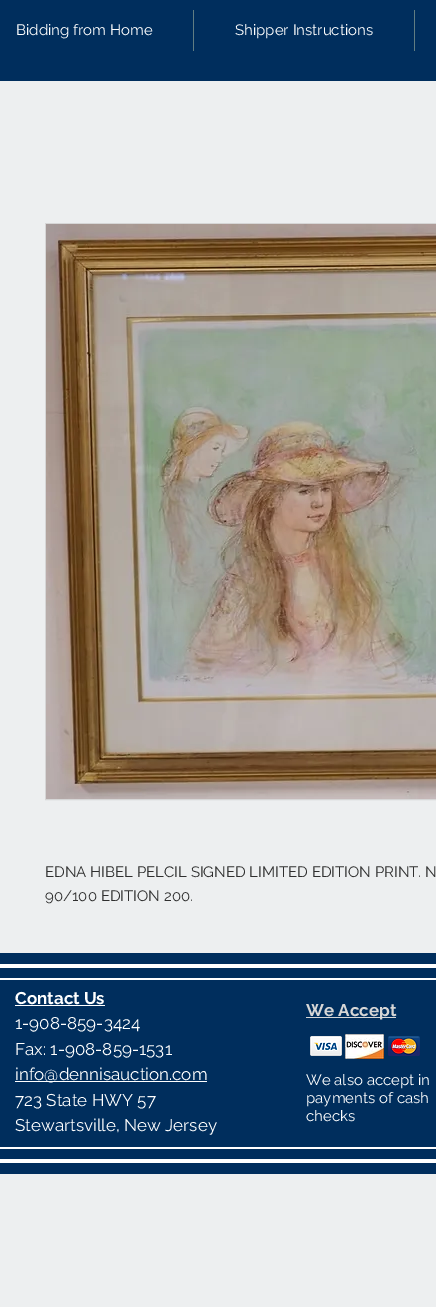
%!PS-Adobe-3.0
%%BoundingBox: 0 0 436 1307
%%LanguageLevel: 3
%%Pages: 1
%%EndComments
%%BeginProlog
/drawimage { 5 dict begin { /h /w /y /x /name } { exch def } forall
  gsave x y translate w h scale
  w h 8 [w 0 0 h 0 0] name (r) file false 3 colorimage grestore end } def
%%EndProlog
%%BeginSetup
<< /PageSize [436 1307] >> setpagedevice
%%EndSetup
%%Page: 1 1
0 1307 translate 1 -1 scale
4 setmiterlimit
0.929 0.937 0.941 setrgbcolor
0 0 436 1307 rectfill
0 0.18 0.365 setrgbcolor
0 0 436 81 rectfill
0.376 0.49 0.51 setrgbcolor
193 10 1 41 rectfill
414 10 1 41 rectfill
0.839 setgray
45.5 223.5 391 576 rectstroke
(images/1.raw) 46 224 390 575 drawimage
0 0.18 0.365 setrgbcolor
0 953 436 221 rectfill
1 setgray
0 964 436 4 rectfill
0 1159 436 4 rectfill
0 978 436 2 rectfill
0 1147 436 2 rectfill
15 1005 90 1 rectfill
15 1081 192 1 rectfill
0.839 setgray
306 1017 90 1 rectfill
(images/2.raw) 310 1036 32 20 drawimage
(images/3.raw) 345 1034 39 25 drawimage
(images/4.raw) 388 1036 32 20 drawimage
/Raleway-Regular [15 0 0 -15 0 0] selectfont
1 setgray
16 35 moveto (Bidding from Home) show
235 35 moveto (Shipper Instructions) show
0.184 setgray
45 877 moveto (EDNA HIBEL PELCIL SIGNED LIMITED EDITION PRINT. N) show
45 901 moveto (90/100 EDITION 200.) show
/Raleway-Bold [17 0 0 -17 0 0] selectfont
1 setgray
15 1004 moveto (Contact Us) show
/Raleway-Regular [17 0 0 -17 0 0] selectfont
15 1029 moveto (1-908-859-3424) show
15 1055 moveto (Fax: 1-908-859-1531) show
15 1080 moveto (info@dennisauction.com) show
15 1106 moveto (723 State HWY 57) show
15 1131 moveto (Stewartsville, New Jersey) show
/Raleway-Bold [17 0 0 -17 0 0] selectfont
0.839 setgray
306 1016 moveto (We Accept) show
/Raleway-Regular [15 0 0 -15 0 0] selectfont
1 setgray
306 1085 moveto (We also accept in) show
306 1103 moveto (payments of cash) show
306 1121 moveto (checks) show
showpage
%%EOF
